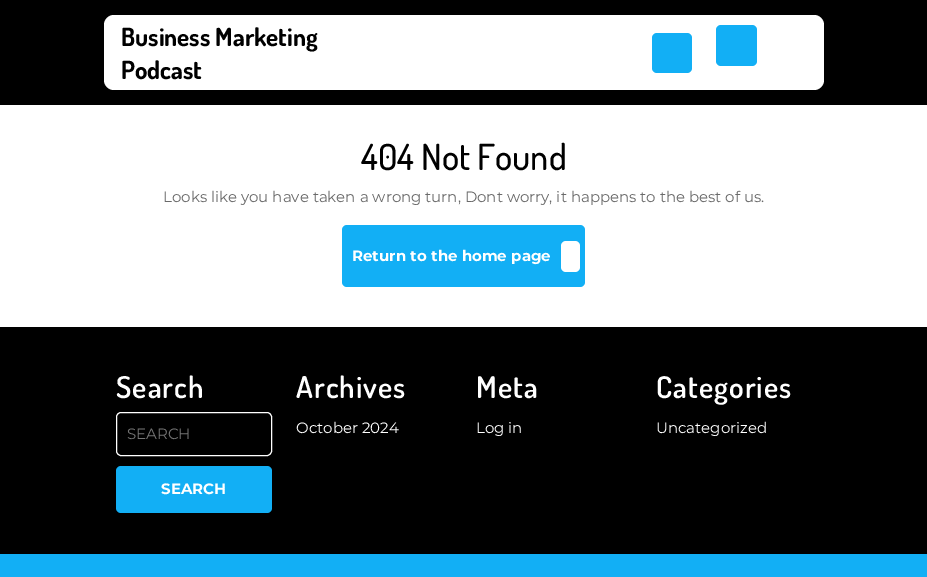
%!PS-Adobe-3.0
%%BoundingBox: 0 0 927 577
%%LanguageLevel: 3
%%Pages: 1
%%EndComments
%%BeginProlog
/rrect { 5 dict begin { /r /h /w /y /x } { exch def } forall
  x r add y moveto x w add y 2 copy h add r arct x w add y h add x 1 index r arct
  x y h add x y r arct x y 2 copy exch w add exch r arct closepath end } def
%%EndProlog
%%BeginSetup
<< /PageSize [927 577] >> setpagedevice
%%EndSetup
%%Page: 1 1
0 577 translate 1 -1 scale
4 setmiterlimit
1 setgray
0 0 927 577 rectfill
0 setgray
0 0 927 105 rectfill
1 setgray
104 15 720 75 10 rrect fill
0.071 0.686 0.961 setrgbcolor
652 33 40 40 5 rrect fill
716 25 41 41 5 rrect fill
342 225 243 62 5 rrect fill
1 setgray
561 241 19 31 5 rrect fill
0 setgray
0 327 927 227 rectfill
1 setgray
116.5 412.5 155 43 4.5 rrect stroke
0.071 0.686 0.961 setrgbcolor
116 466 156 47 5 rrect fill
0 554 927 23 rectfill
/Dosis-Bold [25 0 0 -25 0 0] selectfont
0 setgray
121 46 moveto (Business Marketing) show
121 79 moveto (Podcast) show
/Dosis-Medium [36 0 0 -36 0 0] selectfont
361 170 moveto (404 Not Found) show
/Montserrat-Regular [15 0 0 -15 0 0] selectfont
0.416 setgray
163 202 moveto (Looks like you have taken a wrong turn, Dont worry, it happens to the best of us.) show
/Montserrat-Bold [15 0 0 -15 0 0] selectfont
1 setgray
352 261 moveto (Return to the home page) show
/Dosis-SemiBold [30 0 0 -30 0 0] selectfont
116 398 moveto 1 0 (Search) ashow
/Montserrat-Regular [15 0 0 -15 0 0] selectfont
0.459 setgray
127 439 moveto (SEARCH) show
/Montserrat-Bold [15 0 0 -15 0 0] selectfont
1 setgray
161 494 moveto (SEARCH) show
/Dosis-SemiBold [30 0 0 -30 0 0] selectfont
296 398 moveto 1 0 (Archives) ashow
/Montserrat-Regular [15 0 0 -15 0 0] selectfont
296 433 moveto (October 2024) show
/Dosis-SemiBold [30 0 0 -30 0 0] selectfont
476 398 moveto 1 0 (Meta) ashow
/Montserrat-Regular [15 0 0 -15 0 0] selectfont
476 433 moveto (Log in) show
/Dosis-SemiBold [30 0 0 -30 0 0] selectfont
656 398 moveto 1 0 (Categories) ashow
/Montserrat-Regular [15 0 0 -15 0 0] selectfont
656 433 moveto (Uncategorized) show
showpage
%%EOF
